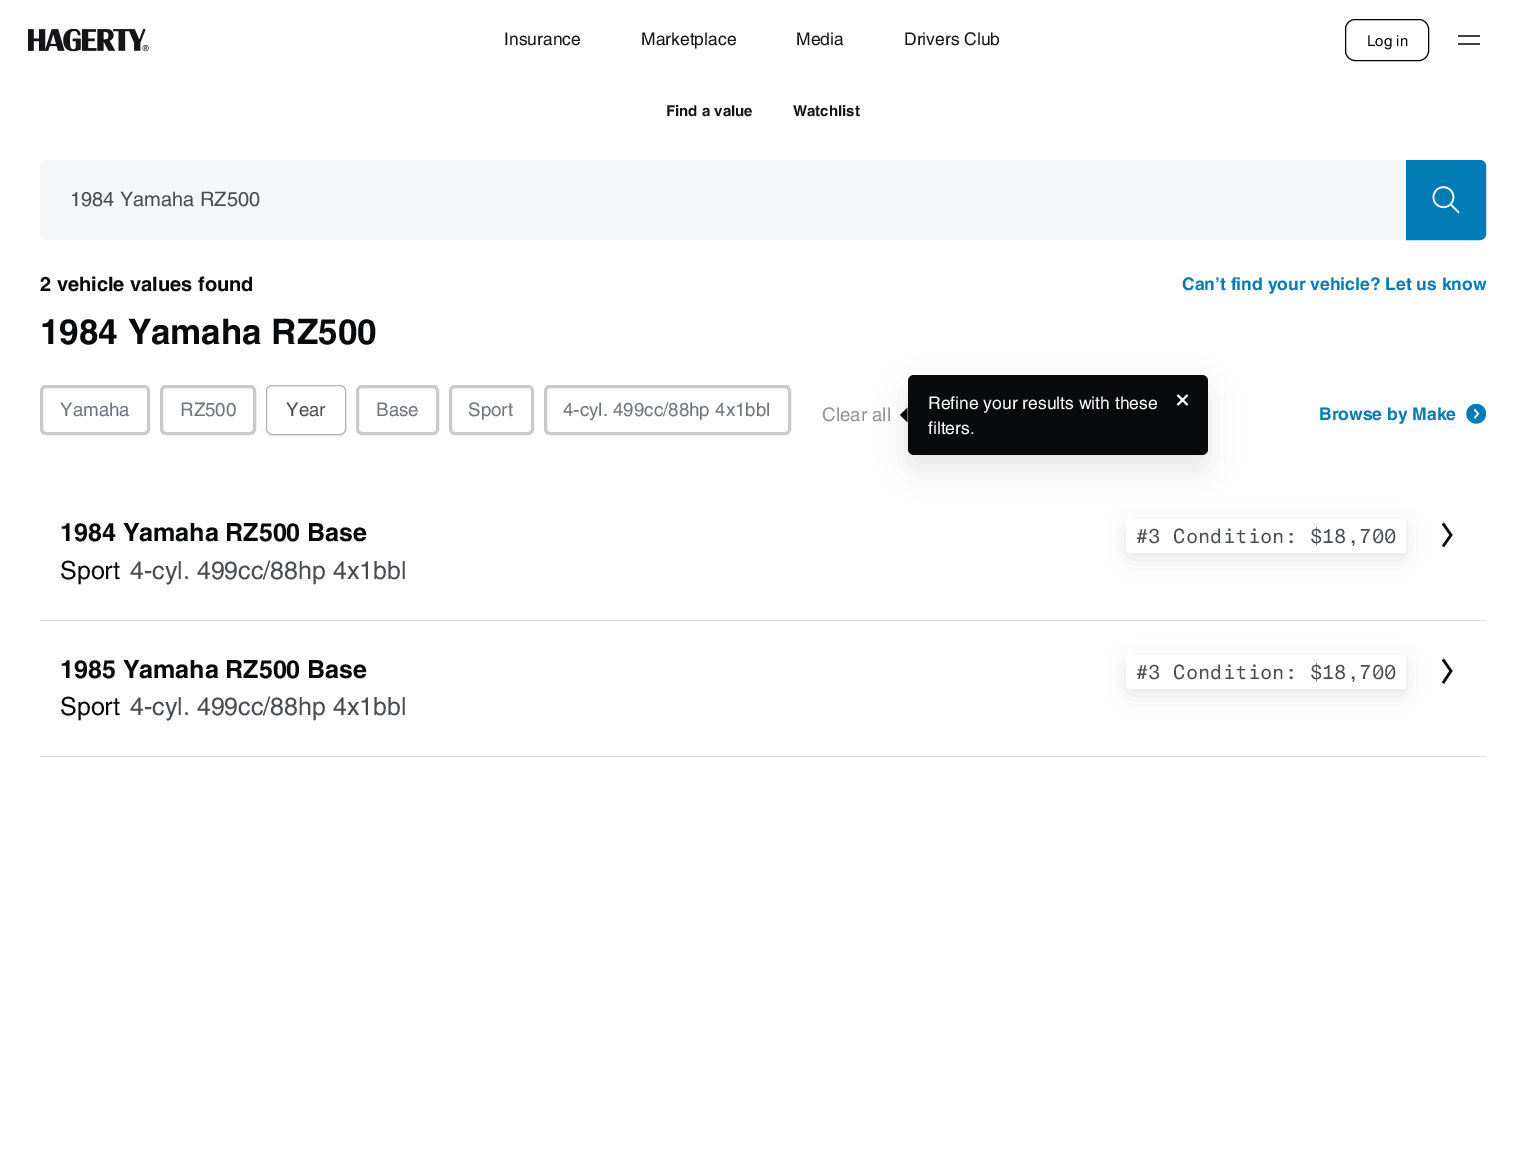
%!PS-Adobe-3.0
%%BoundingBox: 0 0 1526 1153
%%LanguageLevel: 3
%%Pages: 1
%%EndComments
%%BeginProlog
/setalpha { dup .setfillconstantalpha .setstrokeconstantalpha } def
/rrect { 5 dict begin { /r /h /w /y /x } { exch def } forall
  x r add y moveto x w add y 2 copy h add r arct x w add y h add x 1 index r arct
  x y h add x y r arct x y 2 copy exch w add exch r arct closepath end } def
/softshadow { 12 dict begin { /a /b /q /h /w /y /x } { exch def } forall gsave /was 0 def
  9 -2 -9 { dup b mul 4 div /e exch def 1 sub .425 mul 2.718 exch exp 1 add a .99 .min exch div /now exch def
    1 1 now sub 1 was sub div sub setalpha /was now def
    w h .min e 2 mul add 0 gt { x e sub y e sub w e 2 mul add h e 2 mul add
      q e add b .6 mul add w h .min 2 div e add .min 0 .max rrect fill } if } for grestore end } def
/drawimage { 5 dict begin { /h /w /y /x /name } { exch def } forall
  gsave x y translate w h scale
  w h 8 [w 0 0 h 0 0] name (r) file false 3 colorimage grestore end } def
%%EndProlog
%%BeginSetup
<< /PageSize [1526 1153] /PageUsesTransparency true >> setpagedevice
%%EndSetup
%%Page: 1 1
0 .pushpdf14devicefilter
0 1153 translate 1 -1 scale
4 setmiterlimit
1 setgray
0 0 1526 1153 rectfill
(images/1.raw) 28 29 121 23 drawimage
0 setgray
1345.5 19.5 83 41 9.5 rrect stroke
0.267 0.267 0.275 setrgbcolor
1458 35 22 2 rectfill
1458 43 22 2 rectfill
0.957 0.965 0.973 setrgbcolor
newpath 46 160 moveto 1406 160 lineto 1406 240 lineto 46 240 lineto 42.5 240 40 237.5 40 234 curveto 40 166 lineto 40 162.5 42.5 160 46 160 curveto closepath fill
0 0.482 0.702 setrgbcolor
newpath 1407.5 161.5 moveto 1480 161.5 lineto 1482.5 161.5 1484.5 163.5 1484.5 166 curveto 1484.5 234 lineto 1484.5 236.5 1482.5 238.5 1480 238.5 curveto 1407.5 238.5 lineto closepath gsave fill grestore
3 setlinewidth
stroke
(images/2.raw) 1432 186 28 28 drawimage
0.784 0.792 0.796 setrgbcolor
41.5 386.5 107 47 4.5 rrect stroke
161.5 386.5 93 47 4.5 rrect stroke
0.035 0.039 0.043 setrgbcolor
266 386 80 50 6 0.5 0.05 softshadow
1 setgray
266.5 385.5 79 49 5.5 rrect gsave fill grestore
0.694 0.71 0.725 setrgbcolor
1 setlinewidth
stroke
0.784 0.792 0.796 setrgbcolor
3 setlinewidth
357.5 386.5 80 47 4.5 rrect stroke
450.5 386.5 82 47 4.5 rrect stroke
545.5 386.5 244 47 4.5 rrect stroke
(images/3.raw) 1466 404 20 20 drawimage
0.871 0.878 0.886 setrgbcolor
40 620 1446 1 rectfill
0.035 0.039 0.043 setrgbcolor
1126 524 280 35 4 9.5 0.1 softshadow
1 setgray
1126 518 280 35 4 rrect fill
0.035 0.039 0.043 setrgbcolor
2.5 setlinewidth
newpath 1443 523.5 moveto 1451 535 lineto 1443 546.5 lineto stroke
0.871 0.878 0.886 setrgbcolor
40 756 1446 1 rectfill
0.035 0.039 0.043 setrgbcolor
1126 660 280 35 4 9.5 0.1 softshadow
1 setgray
1126 654 280 35 4 rrect fill
0.035 0.039 0.043 setrgbcolor
newpath 1443 659.5 moveto 1451 671 lineto 1443 683 lineto stroke
908 388 300 80 6 15.5 0.1 softshadow
908 375 300 80 6 rrect fill
newpath 907.5 407.5 moveto 907.5 422.5 lineto 900 415 lineto closepath fill
1 setgray
1.9 setlinewidth
newpath 1177.5 395 moveto 1187.5 405 lineto 1187.5 395 moveto 1177.5 405 lineto stroke
/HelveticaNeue-Regular [17.5 0 0 -17.5 0 0] selectfont
0.082 0.082 0.094 setrgbcolor
504 45 moveto (Insurance) show
641 45 moveto (Marketplace) show
796 45 moveto (Media) show
904 45 moveto (Drivers Club) show
/HelveticaNeue-Regular [15 0 0 -15 0 0] selectfont
0 setgray
1367 46 moveto (Log in) show
/HelveticaNeue-Bold [15 0 0 -15 0 0] selectfont
0.082 0.082 0.094 setrgbcolor
666 116 moveto (Find a value) show
793 116 moveto (Watchlist) show
/HelveticaNeue-Regular [20 0 0 -20 0 0] selectfont
0.282 0.298 0.318 setrgbcolor
70 206 moveto (1984 Yamaha RZ500) show
/HelveticaNeue-Bold [20 0 0 -20 0 0] selectfont
0.035 0.039 0.043 setrgbcolor
40 291 moveto (2 vehicle values found) show
/HelveticaNeue-Bold [17.5 0 0 -17.5 0 0] selectfont
0 0.482 0.702 setrgbcolor
1182 290 moveto (Can’t find your vehicle? Let us know) show
/HelveticaNeue-Bold [35 0 0 -35 0 0] selectfont
0.035 0.039 0.043 setrgbcolor
40 344 moveto (1984 Yamaha RZ500) show
/HelveticaNeue-Regular [18.75 0 0 -18.75 0 0] selectfont
0.435 0.459 0.486 setrgbcolor
60 416 moveto (Yamaha) show
180 416 moveto (RZ500) show
0.282 0.298 0.318 setrgbcolor
286 416 moveto (Year) show
0.435 0.459 0.486 setrgbcolor
376 416 moveto (Base) show
468 416 moveto (Sport) show
563 416 moveto (4-cyl. 499cc/88hp 4x1bbl) show
0.557 0.58 0.604 setrgbcolor
822 421 moveto (Clear all) show
/HelveticaNeue-Bold [17.5 0 0 -17.5 0 0] selectfont
0 0.482 0.702 setrgbcolor
1319 420 moveto (Browse by Make) show
/HelveticaNeue-Bold [25 0 0 -25 0 0] selectfont
0.035 0.039 0.043 setrgbcolor
60 541 moveto (1984 Yamaha RZ500 Base) show
/HelveticaNeue-Regular [25 0 0 -25 0 0] selectfont
60 579 moveto (Sport) show
0.282 0.298 0.318 setrgbcolor
130 579 moveto (4-cyl. 499cc/88hp 4x1bbl) show
/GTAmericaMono-Regular [20 0 0 -20 0 0] selectfont
1136 543 moveto (#3 Condition: $18,700) show
/HelveticaNeue-Bold [25 0 0 -25 0 0] selectfont
0.035 0.039 0.043 setrgbcolor
60 678 moveto (1985 Yamaha RZ500 Base) show
/HelveticaNeue-Regular [25 0 0 -25 0 0] selectfont
60 715 moveto (Sport) show
0.282 0.298 0.318 setrgbcolor
130 715 moveto (4-cyl. 499cc/88hp 4x1bbl) show
/GTAmericaMono-Regular [20 0 0 -20 0 0] selectfont
1136 679 moveto (#3 Condition: $18,700) show
/HelveticaNeue-Regular [17.5 0 0 -17.5 0 0] selectfont
1 setgray
928 409 moveto (Refine your results with these) show
928 434 moveto (filters.) show
.poppdf14devicefilter showpage
%%EOF
